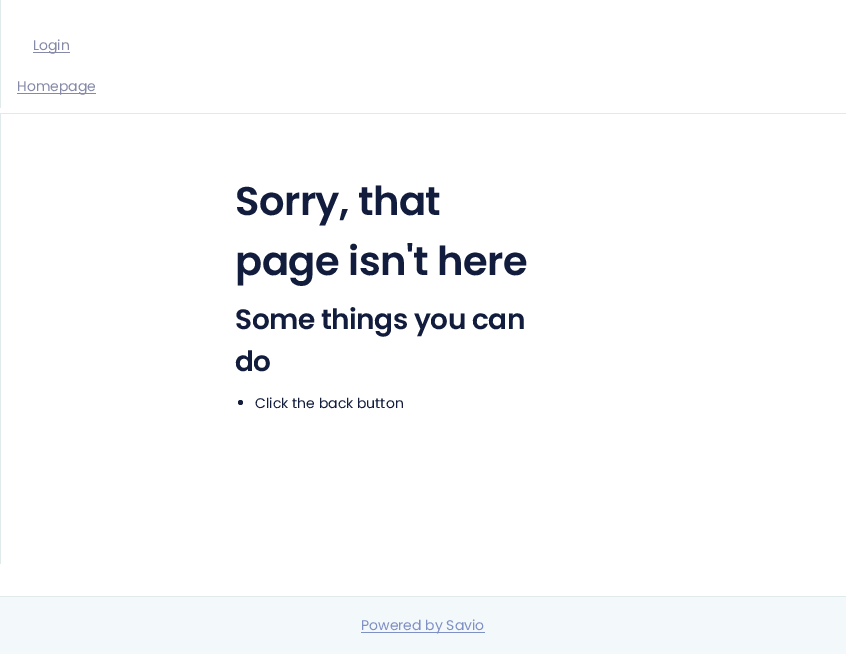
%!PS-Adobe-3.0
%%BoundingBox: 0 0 846 654
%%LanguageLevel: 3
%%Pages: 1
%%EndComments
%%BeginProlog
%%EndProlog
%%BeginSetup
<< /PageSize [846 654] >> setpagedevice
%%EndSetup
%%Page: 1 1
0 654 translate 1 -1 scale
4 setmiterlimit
0.953 0.973 0.98 setrgbcolor
0 0 846 654 rectfill
1 setgray
0 0 846 113 rectfill
0.882 0.918 0.918 setrgbcolor
0 113 846 1 rectfill
0 0 1 108 rectfill
0.525 0.541 0.659 setrgbcolor
33 52 37 1 rectfill
17 93 79 1 rectfill
1 setgray
0 114 846 482 rectfill
0.882 0.918 0.918 setrgbcolor
0 114 1 450 rectfill
0.071 0.11 0.235 setrgbcolor
newpath 240.5 402.5 2.5 0 360 arc closepath fill
0.882 0.918 0.918 setrgbcolor
0 596 846 1 rectfill
0.498 0.565 0.769 setrgbcolor
361 632 124 1 rectfill
/Poppins-Regular [14 0 0 -14 0 0] selectfont
0.525 0.541 0.659 setrgbcolor
33 50 moveto (Login) show
17 91 moveto (Homepage) show
/Poppins-SemiBold [40 0 0 -40 0 0] selectfont
0.071 0.11 0.235 setrgbcolor
235 215 moveto -0.5 0 (Sorry, that) ashow
235 275 moveto -0.5 0 (page isn't here) ashow
/Poppins-SemiBold [28 0 0 -28 0 0] selectfont
235 329 moveto -0.5 0 (Some things you can) ashow
235 371 moveto -0.5 0 (do) ashow
/Poppins-Regular [14 0 0 -14 0 0] selectfont
255 408 moveto (Click the back button) show
0.498 0.565 0.769 setrgbcolor
361 630 moveto (Powered by Savio) show
showpage
%%EOF
